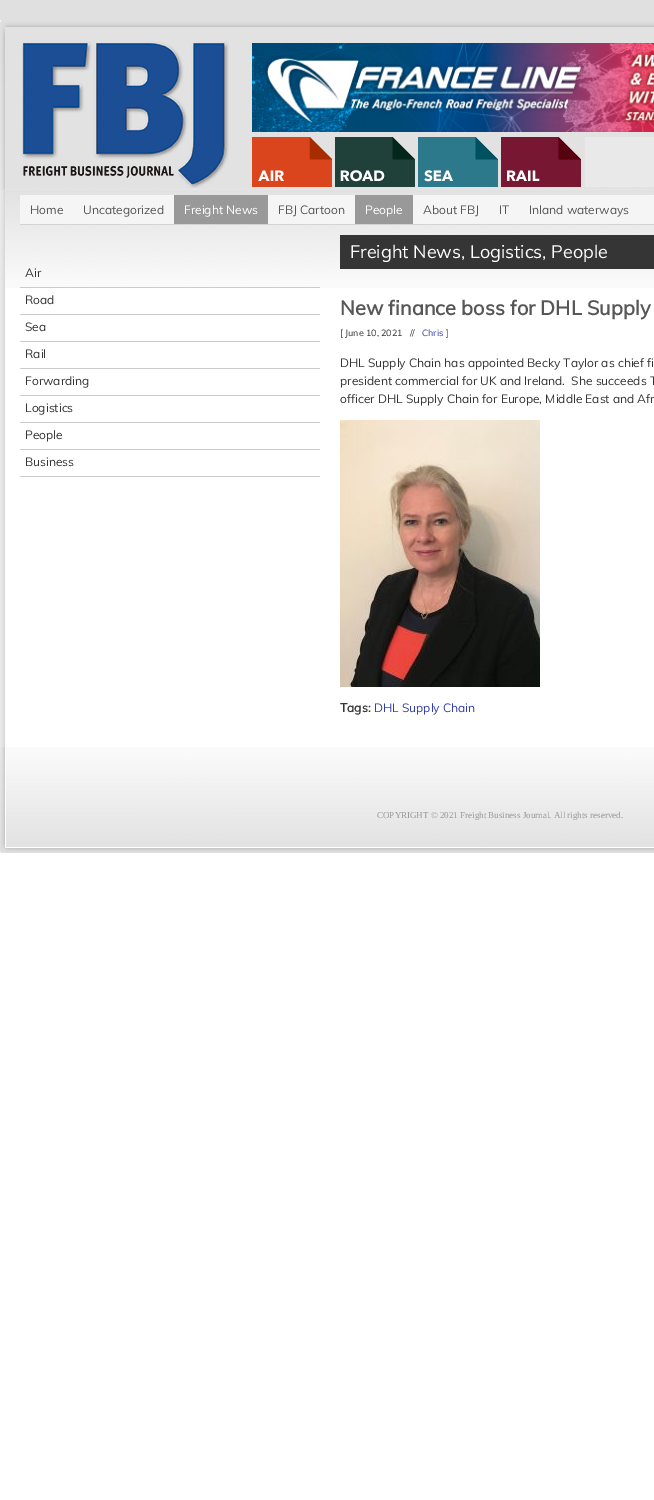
%!PS-Adobe-3.0
%%BoundingBox: 0 0 654 1500
%%LanguageLevel: 3
%%Pages: 1
%%EndComments
%%BeginProlog
/drawimage { 5 dict begin { /h /w /y /x /name } { exch def } forall
  gsave x y translate w h scale
  w h 8 [w 0 0 h 0 0] name (r) file false 3 colorimage grestore end } def
%%EndProlog
%%BeginSetup
<< /PageSize [654 1500] >> setpagedevice
%%EndSetup
%%Page: 1 1
0 1500 translate 1 -1 scale
4 setmiterlimit
1 setgray
0 0 654 1500 rectfill
(images/1.raw) 0 0 654 190 drawimage
(images/2.raw) 0 20 654 170 drawimage
(images/3.raw) 21 41 208 147 drawimage
(images/4.raw) 252 43 402 89 drawimage
(images/5.raw) 252 137 80 50 drawimage
(images/6.raw) 335 137 80 50 drawimage
(images/7.raw) 418 137 80 50 drawimage
(images/8.raw) 501 137 80 50 drawimage
0.914 setgray
585 137 69 50 rectfill
(images/9.raw) 0 190 654 557 drawimage
(images/10.raw) 5 190 649 98 drawimage
0.961 setgray
20 195 634 29 rectfill
0.827 setgray
20 224 634 1 rectfill
0.6 setgray
174 195 94 29 rectfill
355 195 58 29 rectfill
0.8 setgray
20 287 300 1 rectfill
20 314 300 1 rectfill
20 341 300 1 rectfill
20 368 300 1 rectfill
20 395 300 1 rectfill
20 422 300 1 rectfill
20 449 300 1 rectfill
20 476 300 1 rectfill
0.208 setgray
340 235 314 34 rectfill
(images/11.raw) 340 420 200 267 drawimage
(images/12.raw) 0 747 654 106 drawimage
/Muli-Regular [12 0 0 -12 0 0] selectfont
0.341 setgray
30 214 moveto (Home) show
83 214 moveto (Uncategorized) show
1 setgray
184 214 moveto (Freight News) show
0.341 setgray
278 214 moveto (FBJ Cartoon) show
1 setgray
365 214 moveto (People) show
0.341 setgray
423 214 moveto (About FBJ) show
499 214 moveto (IT) show
529 214 moveto (Inland waterways) show
0.208 setgray
25 277 moveto (Air) show
25 304 moveto (Road) show
25 331 moveto (Sea) show
25 358 moveto (Rail) show
25 385 moveto (Forwarding) show
25 412 moveto (Logistics) show
25 439 moveto (People) show
25 466 moveto (Business) show
/Muli-Regular [18 0 0 -18 0 0] selectfont
1 setgray
350 258 moveto (Freight News, Logistics, People) show
/Muli-Bold [20 0 0 -20 0 0] selectfont
0.341 setgray
340 315 moveto (New finance boss for DHL Supply) show
/Muli-Regular [9 0 0 -9 0 0] selectfont
0.208 setgray
340 336 moveto ([ June 10, 2021   //) show
0.196 0.243 0.682 setrgbcolor
422 336 moveto (Chris) show
0.208 setgray
446 336 moveto (]) show
/Muli-Regular [12 0 0 -12 0 0] selectfont
340 367 moveto (DHL Supply Chain has appointed Becky Taylor as chief fi) show
340 385 moveto (president commercial for UK and Ireland.  She succeeds T) show
340 403 moveto (officer DHL Supply Chain for Europe, Middle East and Afr) show
/Muli-Bold [12 0 0 -12 0 0] selectfont
340 712 moveto (Tags:) show
/Muli-Regular [12 0 0 -12 0 0] selectfont
0.196 0.243 0.682 setrgbcolor
374 712 moveto (DHL Supply Chain) show
/LiberationSerif-Regular [9 0 0 -9 0 0] selectfont
0.6 setgray
377 818 moveto (COPYRIGHT © 2021 Freight Business Journal. All rights reserved.) show
showpage
%%EOF
